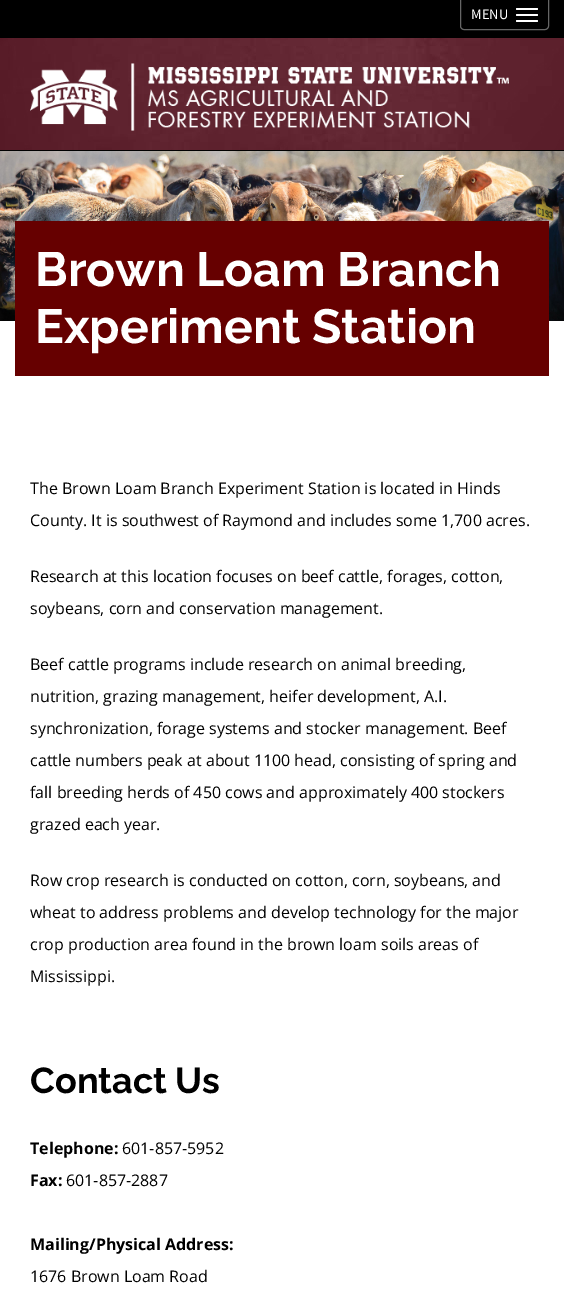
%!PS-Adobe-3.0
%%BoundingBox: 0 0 564 1297
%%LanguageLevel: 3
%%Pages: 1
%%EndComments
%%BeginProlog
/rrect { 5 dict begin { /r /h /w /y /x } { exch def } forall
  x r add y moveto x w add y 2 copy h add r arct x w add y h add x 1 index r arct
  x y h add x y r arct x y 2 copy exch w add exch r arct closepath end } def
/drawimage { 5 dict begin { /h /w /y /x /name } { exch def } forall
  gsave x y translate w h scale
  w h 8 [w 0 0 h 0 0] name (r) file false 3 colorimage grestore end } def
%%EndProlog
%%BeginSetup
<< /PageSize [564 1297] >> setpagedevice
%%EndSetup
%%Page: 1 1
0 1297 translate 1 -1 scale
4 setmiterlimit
1 setgray
0 0 564 1297 rectfill
0 setgray
0 0 564 38 rectfill
0.4 setgray
460.5 -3.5 88 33 3.5 rrect stroke
1 setgray
516 8 22 2 1 rrect fill
516 14 22 2 1 rrect fill
516 20 22 2 1 rrect fill
(images/1.raw) 0 38 564 112 drawimage
0 setgray
0 150 564 1 rectfill
(images/2.raw) 30 63 479 68 drawimage
(images/3.raw) 0 151 564 170 drawimage
0.4 0 0 setrgbcolor
15 221 534 155 rectfill
/SourceSansPro-Regular [14.5 0 0 -14.5 0 0] selectfont
1 setgray
471 19 moveto (MENU) show
/Raleway-Bold [48 0 0 -48 0 0] selectfont
35 286 moveto (Brown Loam Branch) show
35 343 moveto (Experiment Station) show
/OpenSans-Regular [16 0 0 -16 0 0] selectfont
0 setgray
30 494 moveto (The Brown Loam Branch Experiment Station is located in Hinds) show
30 526 moveto (County. It is southwest of Raymond and includes some 1,700 acres.) show
30 582 moveto (Research at this location focuses on beef cattle, forages, cotton,) show
30 614 moveto (soybeans, corn and conservation management.) show
30 670 moveto (Beef cattle programs include research on animal breeding,) show
30 702 moveto (nutrition, grazing management, heifer development, A.I.) show
30 734 moveto (synchronization, forage systems and stocker management. Beef) show
30 766 moveto (cattle numbers peak at about 1100 head, consisting of spring and) show
30 798 moveto (fall breeding herds of 450 cows and approximately 400 stockers) show
30 830 moveto (grazed each year.) show
30 886 moveto (Row crop research is conducted on cotton, corn, soybeans, and) show
30 918 moveto (wheat to address problems and develop technology for the major) show
30 950 moveto (crop production area found in the brown loam soils areas of) show
30 982 moveto (Mississippi.) show
/Raleway-Bold [36 0 0 -36 0 0] selectfont
30 1093 moveto (Contact Us) show
/OpenSans-Bold [16 0 0 -16 0 0] selectfont
30 1154 moveto (Telephone:) show
/OpenSans-Regular [16 0 0 -16 0 0] selectfont
122 1154 moveto (601-857-5952) show
/OpenSans-Bold [16 0 0 -16 0 0] selectfont
30 1186 moveto (Fax:) show
/OpenSans-Regular [16 0 0 -16 0 0] selectfont
66 1186 moveto (601-857-2887) show
/OpenSans-Bold [16 0 0 -16 0 0] selectfont
30 1250 moveto (Mailing/Physical Address:) show
/OpenSans-Regular [16 0 0 -16 0 0] selectfont
30 1282 moveto (1676 Brown Loam Road) show
showpage
%%EOF
